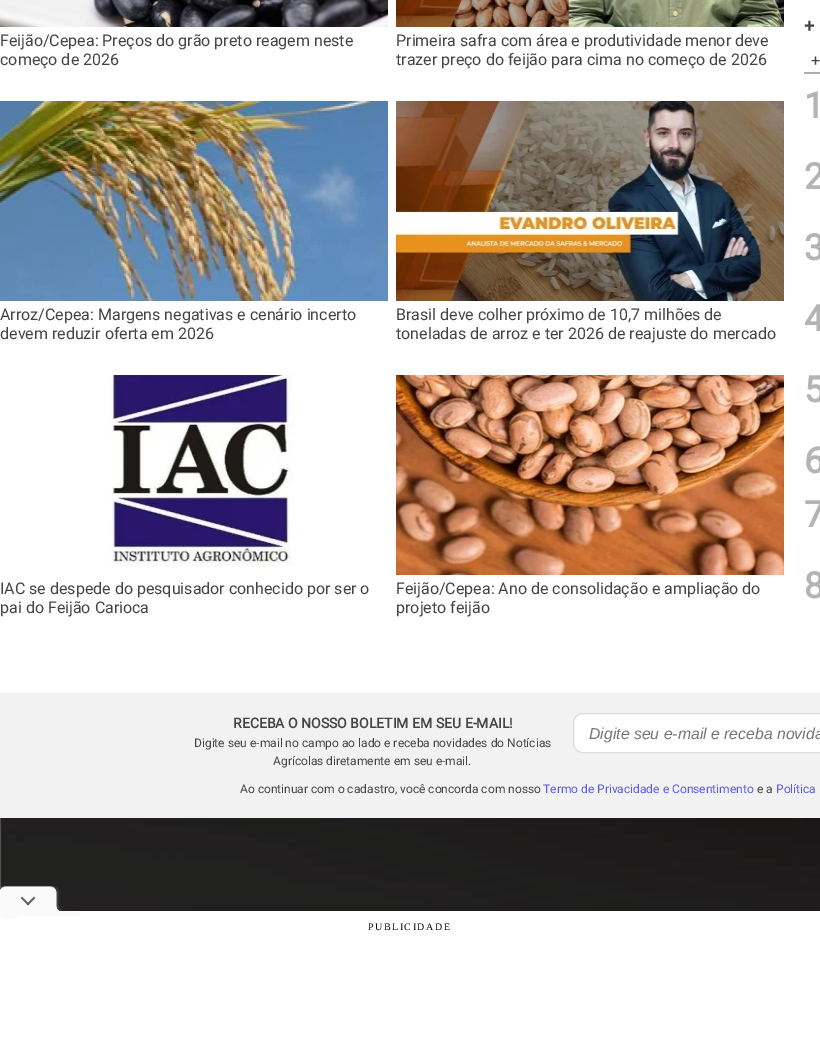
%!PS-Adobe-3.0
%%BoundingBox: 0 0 820 1041
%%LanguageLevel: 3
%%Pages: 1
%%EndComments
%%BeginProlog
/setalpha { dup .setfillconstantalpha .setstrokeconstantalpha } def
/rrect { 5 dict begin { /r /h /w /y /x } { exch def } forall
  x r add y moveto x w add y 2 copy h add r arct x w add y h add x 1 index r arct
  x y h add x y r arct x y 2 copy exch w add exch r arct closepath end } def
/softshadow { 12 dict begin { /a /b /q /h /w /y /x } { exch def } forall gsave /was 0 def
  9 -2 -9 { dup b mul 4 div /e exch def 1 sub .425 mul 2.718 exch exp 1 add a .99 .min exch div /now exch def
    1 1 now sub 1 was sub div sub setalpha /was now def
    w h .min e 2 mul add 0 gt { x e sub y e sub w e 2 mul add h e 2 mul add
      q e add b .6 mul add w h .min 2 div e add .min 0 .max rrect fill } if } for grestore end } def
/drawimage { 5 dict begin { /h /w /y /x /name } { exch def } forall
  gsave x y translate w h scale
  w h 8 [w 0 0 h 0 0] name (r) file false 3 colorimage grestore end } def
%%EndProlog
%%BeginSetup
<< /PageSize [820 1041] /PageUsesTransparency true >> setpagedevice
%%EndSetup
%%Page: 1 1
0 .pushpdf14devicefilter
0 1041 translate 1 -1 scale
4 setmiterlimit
1 setgray
0 0 820 1041 rectfill
(images/1.raw) 0 0 388 27 drawimage
(images/2.raw) 396 0 388 27 drawimage
(images/3.raw) 0 101 388 200 drawimage
(images/4.raw) 396 101 388 200 drawimage
(images/5.raw) 109 375 186 192 drawimage
(images/6.raw) 396 375 388 200 drawimage
0.682 setgray
804 72 16 2 rectfill
0.949 setgray
0 693 820 125 rectfill
1 setgray
573.5 713.5 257 39 9.5 rrect gsave fill grestore
0.855 setgray
stroke
(images/7.raw) 0 818 820 93 drawimage
0 setgray
0 911 820 130 0 5 0.2 softshadow
1 setgray
0 911 820 130 rectfill
0 setgray
0 888 20 26 4 2 0.27 softshadow
(images/8.raw) 0 886 80 30 drawimage
/Roboto-Regular [16 0 0 -16 0 0] selectfont
0.267 setgray
0 46 moveto (Feijão/Cepea: Preços do grão preto reagem neste) show
0 65 moveto (começo de 2026) show
396 46 moveto (Primeira safra com área e produtividade menor deve) show
396 65 moveto (trazer preço do feijão para cima no começo de 2026) show
0 320 moveto (Arroz/Cepea: Margens negativas e cenário incerto) show
0 339 moveto (devem reduzir oferta em 2026) show
396 320 moveto (Brasil deve colher próximo de 10,7 milhões de) show
396 339 moveto (toneladas de arroz e ter 2026 de reajuste do mercado) show
0 594 moveto (IAC se despede do pesquisador conhecido por ser o) show
0 613 moveto (pai do Feijão Carioca) show
396 594 moveto (Feijão/Cepea: Ano de consolidação e ampliação do) show
396 613 moveto (projeto feijão) show
/Roboto-Bold [18 0 0 -18 0 0] selectfont
804 32 moveto (+) show
/Roboto-Regular [16 0 0 -16 0 0] selectfont
811 66 moveto (+) show
/Roboto-Bold [36 0 0 -36 0 0] selectfont
0.706 setgray
804 118 moveto (1) show
804 189 moveto (2) show
804 260 moveto (3) show
804 331 moveto (4) show
804 402 moveto (5) show
804 473 moveto (6) show
804 527 moveto (7) show
804 598 moveto (8) show
/Roboto-Bold [14 0 0 -14 0 0] selectfont
0.267 setgray
233 728 moveto (RECEBA O NOSSO BOLETIM EM SEU E-MAIL!) show
/Roboto-Regular [12 0 0 -12 0 0] selectfont
194 747 moveto (Digite seu e-mail no campo ao lado e receba novidades do Notícias) show
273 765 moveto (Agrícolas diretamente em seu e-mail.) show
/LiberationSans-Italic [15.8 0 0 -15.8 0 0] selectfont
0.459 setgray
589 739 moveto (Digite seu e-mail e receba novida) show
/Roboto-Regular [12 0 0 -12 0 0] selectfont
0.267 setgray
240 793 moveto (Ao continuar com o cadastro, você concorda com nosso) show
0.357 0.345 0.961 setrgbcolor
543 793 moveto (Termo de Privacidade e Consentimento) show
0.267 setgray
757 793 moveto (e a) show
0.357 0.345 0.961 setrgbcolor
776 793 moveto (Política) show
/LiberationSerif-Regular [10 0 0 -10 0 0] selectfont
0 setgray
368 930 moveto 1.5 0 (PUBLICIDADE) ashow
.poppdf14devicefilter showpage
%%EOF
